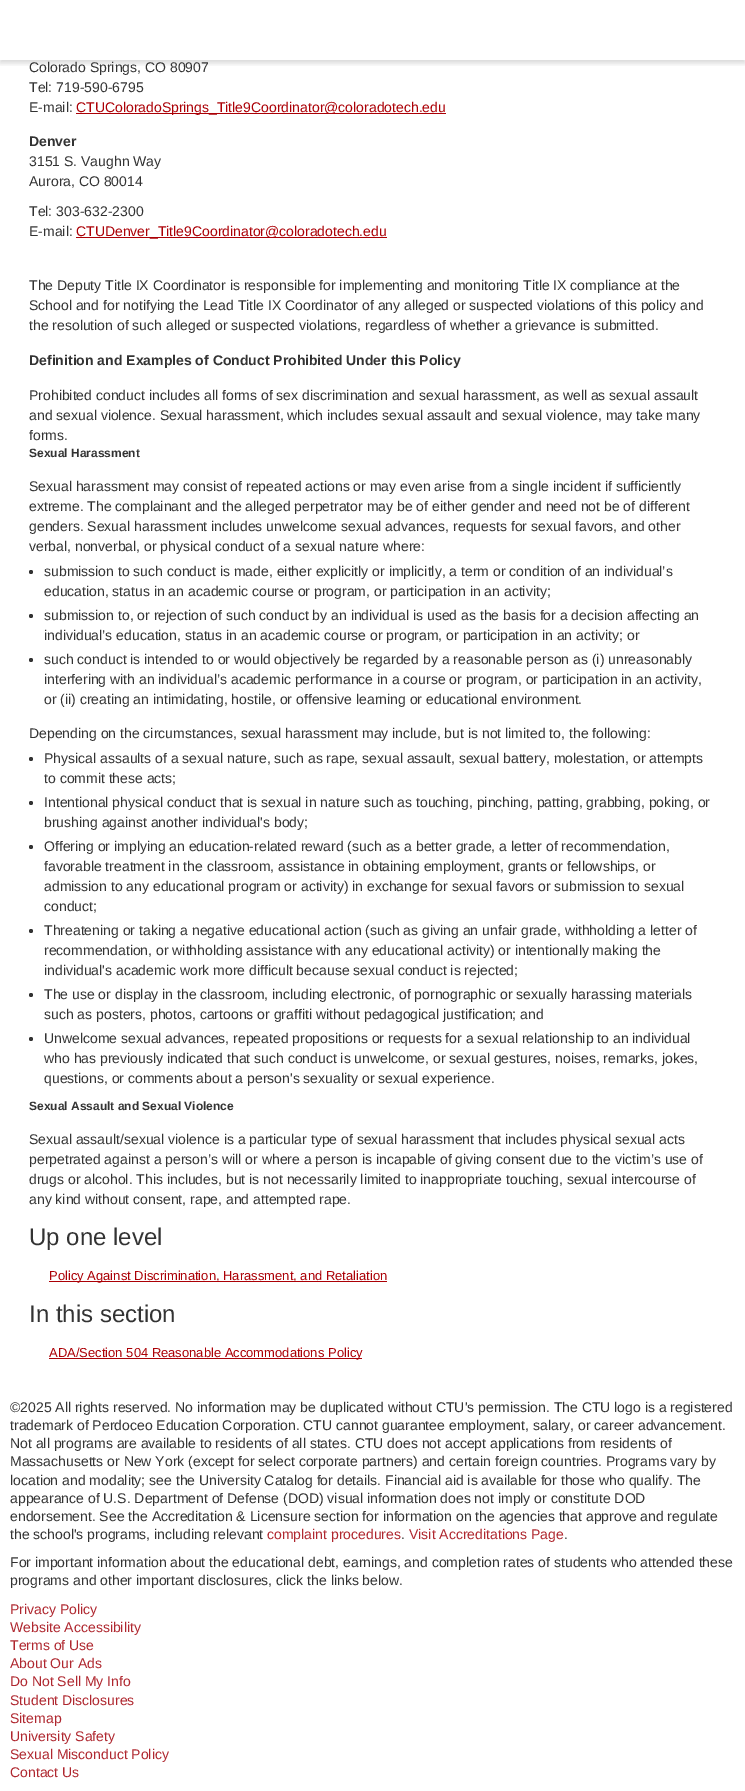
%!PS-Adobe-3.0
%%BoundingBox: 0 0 745 1791
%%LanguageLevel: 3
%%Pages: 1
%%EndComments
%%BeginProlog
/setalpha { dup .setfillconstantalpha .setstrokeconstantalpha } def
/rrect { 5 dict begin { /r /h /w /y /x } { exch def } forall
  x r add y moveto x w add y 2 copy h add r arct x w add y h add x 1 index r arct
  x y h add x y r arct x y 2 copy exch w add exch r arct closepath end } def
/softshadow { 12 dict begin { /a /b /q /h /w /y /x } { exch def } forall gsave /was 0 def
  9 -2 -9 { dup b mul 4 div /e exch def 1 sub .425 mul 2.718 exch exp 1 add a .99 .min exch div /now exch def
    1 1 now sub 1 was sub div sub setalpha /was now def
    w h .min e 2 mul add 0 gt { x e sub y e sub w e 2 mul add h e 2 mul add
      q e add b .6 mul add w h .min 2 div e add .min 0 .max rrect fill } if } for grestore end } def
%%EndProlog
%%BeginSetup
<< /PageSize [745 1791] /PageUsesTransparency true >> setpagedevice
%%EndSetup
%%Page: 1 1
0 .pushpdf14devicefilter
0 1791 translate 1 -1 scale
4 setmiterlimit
1 setgray
0 0 745 1791 rectfill
gsave
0 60 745 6 rectclip
0 setgray
0 3 745 60 0 3 0.16 softshadow
grestore
0.671 0 0.024 setrgbcolor
76 113 370 1 rectfill
76 237 311 1 rectfill
0.2 setgray
newpath 31 572 2 0 360 arc closepath fill
newpath 31 616 2 0 360 arc closepath fill
newpath 31 660 2 0 360 arc closepath fill
newpath 31 759 2 0 360 arc closepath fill
newpath 31 803 2 0 360 arc closepath fill
newpath 31 847 2 0 360 arc closepath fill
newpath 31 931 2 0 360 arc closepath fill
newpath 31 995 2 0 360 arc closepath fill
newpath 31 1039 2 0 360 arc closepath fill
0.671 0 0.024 setrgbcolor
49 1281 338 1 rectfill
49 1358 313 1 rectfill
/LiberationSans-Regular [14 0 0 -14 0 0] selectfont
0.2 setgray
29 72 moveto (Colorado Springs, CO 80907) show
29 92 moveto (Tel: 719-590-6795) show
29 112 moveto (E-mail:) show
0.671 0 0.024 setrgbcolor
76 112 moveto (CTUColoradoSprings_Title9Coordinator@coloradotech.edu) show
/LiberationSans-Bold [14 0 0 -14 0 0] selectfont
0.2 setgray
29 146 moveto (Denver) show
/LiberationSans-Regular [14 0 0 -14 0 0] selectfont
29 166 moveto (3151 S. Vaughn Way) show
29 186 moveto (Aurora, CO 80014) show
29 216 moveto (Tel: 303-632-2300) show
29 236 moveto (E-mail:) show
0.671 0 0.024 setrgbcolor
76 236 moveto (CTUDenver_Title9Coordinator@coloradotech.edu) show
0.2 setgray
29 290 moveto (The Deputy Title IX Coordinator is responsible for implementing and monitoring Title IX compliance at the) show
29 310 moveto (School and for notifying the Lead Title IX Coordinator of any alleged or suspected violations of this policy and) show
29 330 moveto (the resolution of such alleged or suspected violations, regardless of whether a grievance is submitted.) show
/LiberationSans-Bold [14 0 0 -14 0 0] selectfont
29 365 moveto (Definition and Examples of Conduct Prohibited Under this Policy) show
/LiberationSans-Regular [14 0 0 -14 0 0] selectfont
29 400 moveto (Prohibited conduct includes all forms of sex discrimination and sexual harassment, as well as sexual assault) show
29 420 moveto (and sexual violence. Sexual harassment, which includes sexual assault and sexual violence, may take many) show
29 440 moveto (forms.) show
/LiberationSans-Bold [12 0 0 -12 0 0] selectfont
29 457 moveto (Sexual Harassment) show
/LiberationSans-Regular [14 0 0 -14 0 0] selectfont
29 491 moveto (Sexual harassment may consist of repeated actions or may even arise from a single incident if sufficiently) show
29 511 moveto (extreme. The complainant and the alleged perpetrator may be of either gender and need not be of different) show
29 531 moveto (genders. Sexual harassment includes unwelcome sexual advances, requests for sexual favors, and other) show
29 551 moveto (verbal, nonverbal, or physical conduct of a sexual nature where:) show
44 576 moveto (submission to such conduct is made, either explicitly or implicitly, a term or condition of an individual’s) show
44 596 moveto (education, status in an academic course or program, or participation in an activity;) show
44 620 moveto (submission to, or rejection of such conduct by an individual is used as the basis for a decision affecting an) show
44 640 moveto (individual’s education, status in an academic course or program, or participation in an activity; or) show
44 664 moveto (such conduct is intended to or would objectively be regarded by a reasonable person as \(i\) unreasonably) show
44 684 moveto (interfering with an individual’s academic performance in a course or program, or participation in an activity,) show
44 704 moveto (or \(ii\) creating an intimidating, hostile, or offensive learning or educational environment.) show
29 738 moveto (Depending on the circumstances, sexual harassment may include, but is not limited to, the following:) show
44 763 moveto (Physical assaults of a sexual nature, such as rape, sexual assault, sexual battery, molestation, or attempts) show
44 783 moveto (to commit these acts;) show
44 807 moveto (Intentional physical conduct that is sexual in nature such as touching, pinching, patting, grabbing, poking, or) show
44 827 moveto (brushing against another individual's body;) show
44 851 moveto (Offering or implying an education-related reward \(such as a better grade, a letter of recommendation,) show
44 871 moveto (favorable treatment in the classroom, assistance in obtaining employment, grants or fellowships, or) show
44 891 moveto (admission to any educational program or activity\) in exchange for sexual favors or submission to sexual) show
44 911 moveto (conduct;) show
44 935 moveto (Threatening or taking a negative educational action \(such as giving an unfair grade, withholding a letter of) show
44 955 moveto (recommendation, or withholding assistance with any educational activity\) or intentionally making the) show
44 975 moveto (individual's academic work more difficult because sexual conduct is rejected;) show
44 999 moveto (The use or display in the classroom, including electronic, of pornographic or sexually harassing materials) show
44 1019 moveto (such as posters, photos, cartoons or graffiti without pedagogical justification; and) show
44 1043 moveto (Unwelcome sexual advances, repeated propositions or requests for a sexual relationship to an individual) show
44 1063 moveto (who has previously indicated that such conduct is unwelcome, or sexual gestures, noises, remarks, jokes,) show
44 1083 moveto (questions, or comments about a person's sexuality or sexual experience.) show
/LiberationSans-Bold [12 0 0 -12 0 0] selectfont
29 1110 moveto (Sexual Assault and Sexual Violence) show
/LiberationSans-Regular [14 0 0 -14 0 0] selectfont
29 1144 moveto (Sexual assault/sexual violence is a particular type of sexual harassment that includes physical sexual acts) show
29 1164 moveto (perpetrated against a person’s will or where a person is incapable of giving consent due to the victim’s use of) show
29 1184 moveto (drugs or alcohol. This includes, but is not necessarily limited to inappropriate touching, sexual intercourse of) show
29 1204 moveto (any kind without consent, rape, and attempted rape.) show
/LiberationSans-Regular [24 0 0 -24 0 0] selectfont
29 1245 moveto (Up one level) show
/LiberationSans-Regular [13 0 0 -13 0 0] selectfont
0.671 0 0.024 setrgbcolor
49 1280 moveto (Policy Against Discrimination, Harassment, and Retaliation) show
/LiberationSans-Regular [24 0 0 -24 0 0] selectfont
0.2 setgray
29 1322 moveto (In this section) show
/LiberationSans-Regular [13 0 0 -13 0 0] selectfont
0.671 0 0.024 setrgbcolor
49 1357 moveto (ADA/Section 504 Reasonable Accommodations Policy) show
/LiberationSans-Regular [14 0 0 -14 0 0] selectfont
0.2 setgray
10 1412 moveto (©2025 All rights reserved. No information may be duplicated without CTU's permission. The CTU logo is a registered) show
10 1430 moveto (trademark of Perdoceo Education Corporation. CTU cannot guarantee employment, salary, or career advancement.) show
10 1448 moveto (Not all programs are available to residents of all states. CTU does not accept applications from residents of) show
10 1466 moveto (Massachusetts or New York \(except for select corporate partners\) and certain foreign countries. Programs vary by) show
10 1485 moveto (location and modality; see the University Catalog for details. Financial aid is available for those who qualify. The) show
10 1503 moveto (appearance of U.S. Department of Defense \(DOD\) visual information does not imply or constitute DOD) show
10 1521 moveto (endorsement. See the Accreditation & Licensure section for information on the agencies that approve and regulate) show
10 1539 moveto (the school's programs, including relevant) show
0.686 0.153 0.184 setrgbcolor
267 1539 moveto (complaint procedures) show
0.2 setgray
401 1539 moveto (.) show
0.686 0.153 0.184 setrgbcolor
409 1539 moveto (Visit Accreditations Page) show
0.2 setgray
564 1539 moveto (.) show
10 1567 moveto (For important information about the educational debt, earnings, and completion rates of students who attended these) show
10 1585 moveto (programs and other important disclosures, click the links below.) show
0.686 0.153 0.184 setrgbcolor
10 1614 moveto (Privacy Policy) show
10 1632 moveto (Website Accessibility) show
10 1650 moveto (Terms of Use) show
10 1668 moveto (About Our Ads) show
10 1686 moveto (Do Not Sell My Info) show
10 1705 moveto (Student Disclosures) show
10 1723 moveto (Sitemap) show
10 1741 moveto (University Safety) show
10 1759 moveto (Sexual Misconduct Policy) show
10 1777 moveto (Contact Us) show
.poppdf14devicefilter showpage
%%EOF
